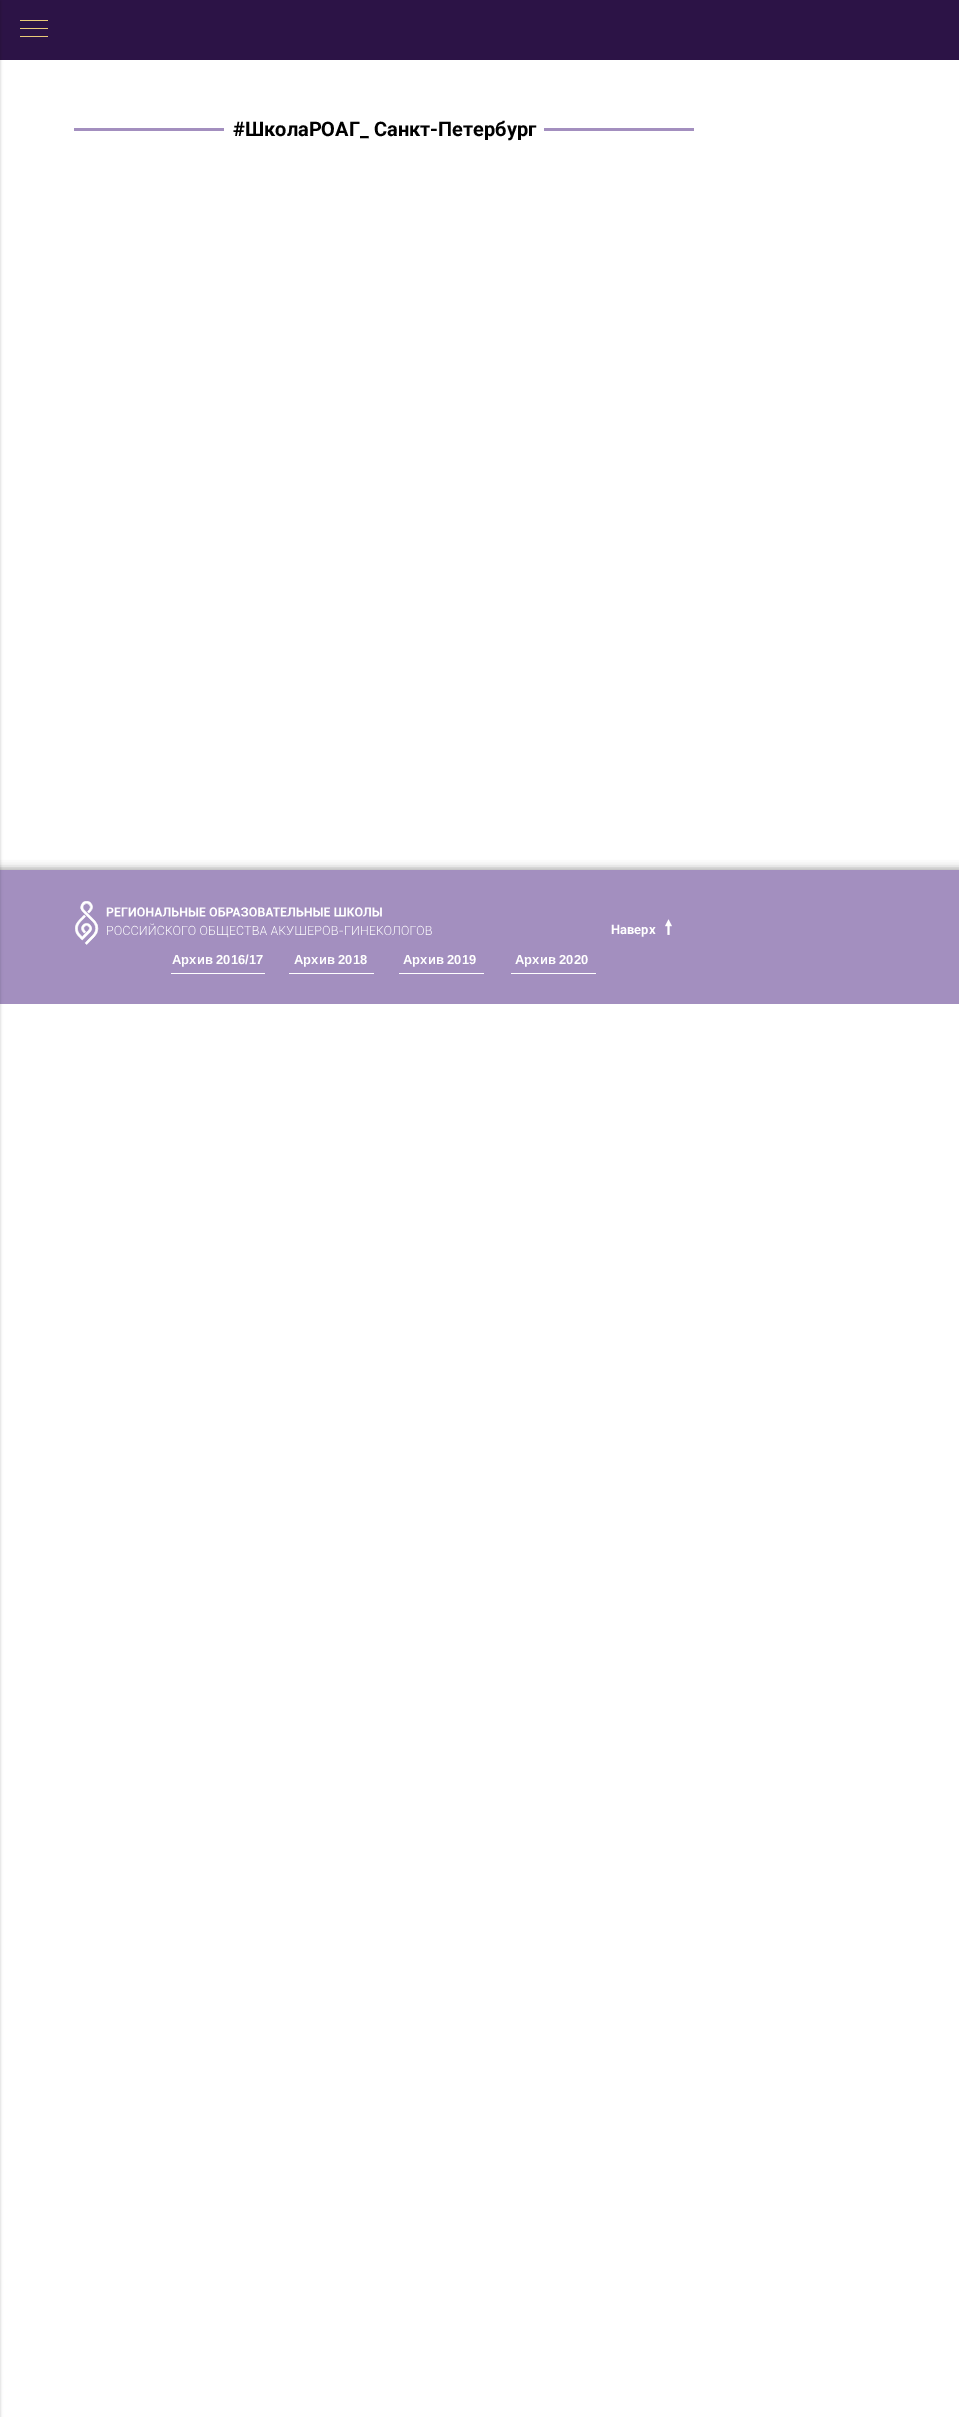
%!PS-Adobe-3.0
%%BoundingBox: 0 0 959 2417
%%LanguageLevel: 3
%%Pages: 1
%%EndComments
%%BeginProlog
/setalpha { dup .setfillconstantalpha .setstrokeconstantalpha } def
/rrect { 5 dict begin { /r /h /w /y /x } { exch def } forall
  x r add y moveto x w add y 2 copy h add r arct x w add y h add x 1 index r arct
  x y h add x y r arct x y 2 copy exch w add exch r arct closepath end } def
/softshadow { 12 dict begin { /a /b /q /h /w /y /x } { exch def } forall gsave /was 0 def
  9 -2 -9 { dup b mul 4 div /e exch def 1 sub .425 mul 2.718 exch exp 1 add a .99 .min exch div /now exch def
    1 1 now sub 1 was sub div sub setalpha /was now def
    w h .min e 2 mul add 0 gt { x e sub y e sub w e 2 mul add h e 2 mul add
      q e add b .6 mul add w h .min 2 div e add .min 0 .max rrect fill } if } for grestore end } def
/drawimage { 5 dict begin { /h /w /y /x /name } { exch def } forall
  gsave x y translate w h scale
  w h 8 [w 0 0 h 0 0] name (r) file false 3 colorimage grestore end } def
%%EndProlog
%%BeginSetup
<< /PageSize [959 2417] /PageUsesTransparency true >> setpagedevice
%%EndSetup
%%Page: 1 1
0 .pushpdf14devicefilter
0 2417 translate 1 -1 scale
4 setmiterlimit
1 setgray
0 0 959 2417 rectfill
0.173 0.075 0.275 setrgbcolor
0 0 959 60 rectfill
0.918 0.796 0.471 setrgbcolor
20 20 28 1 rectfill
20 28 28 1 rectfill
20 36 28 1 rectfill
gsave
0 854 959 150 rectclip
0.38 setgray
-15 871 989 143 0 5 1 softshadow
grestore
0.639 0.561 0.749 setrgbcolor
0 870 959 134 rectfill
0 setgray
-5 1 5 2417 0 1.5 0.2 softshadow
0.639 0.561 0.749 setrgbcolor
74 128 150 3 rectfill
544 128 150 3 rectfill
(images/1.raw) 75 901 357 44 drawimage
(images/2.raw) 665 919 7 16 drawimage
1 setgray
171 973 94 1 rectfill
289 973 85 1 rectfill
399 973 85 1 rectfill
511 973 85 1 rectfill
/Roboto-Bold [20 0 0 -20 0 0] selectfont
0 setgray
233 136 moveto (#ШколаРОАГ_ Санкт-Петербург) show
/Roboto-Bold [13 0 0 -13 0 0] selectfont
1 setgray
611 934 moveto (Наверх) show
/LiberationSans-Bold [13 0 0 -13 0 0] selectfont
172 964 moveto (Архив 2016/17) show
294 964 moveto (Архив 2018) show
403 964 moveto (Архив 2019) show
515 964 moveto (Архив 2020) show
.poppdf14devicefilter showpage
%%EOF
